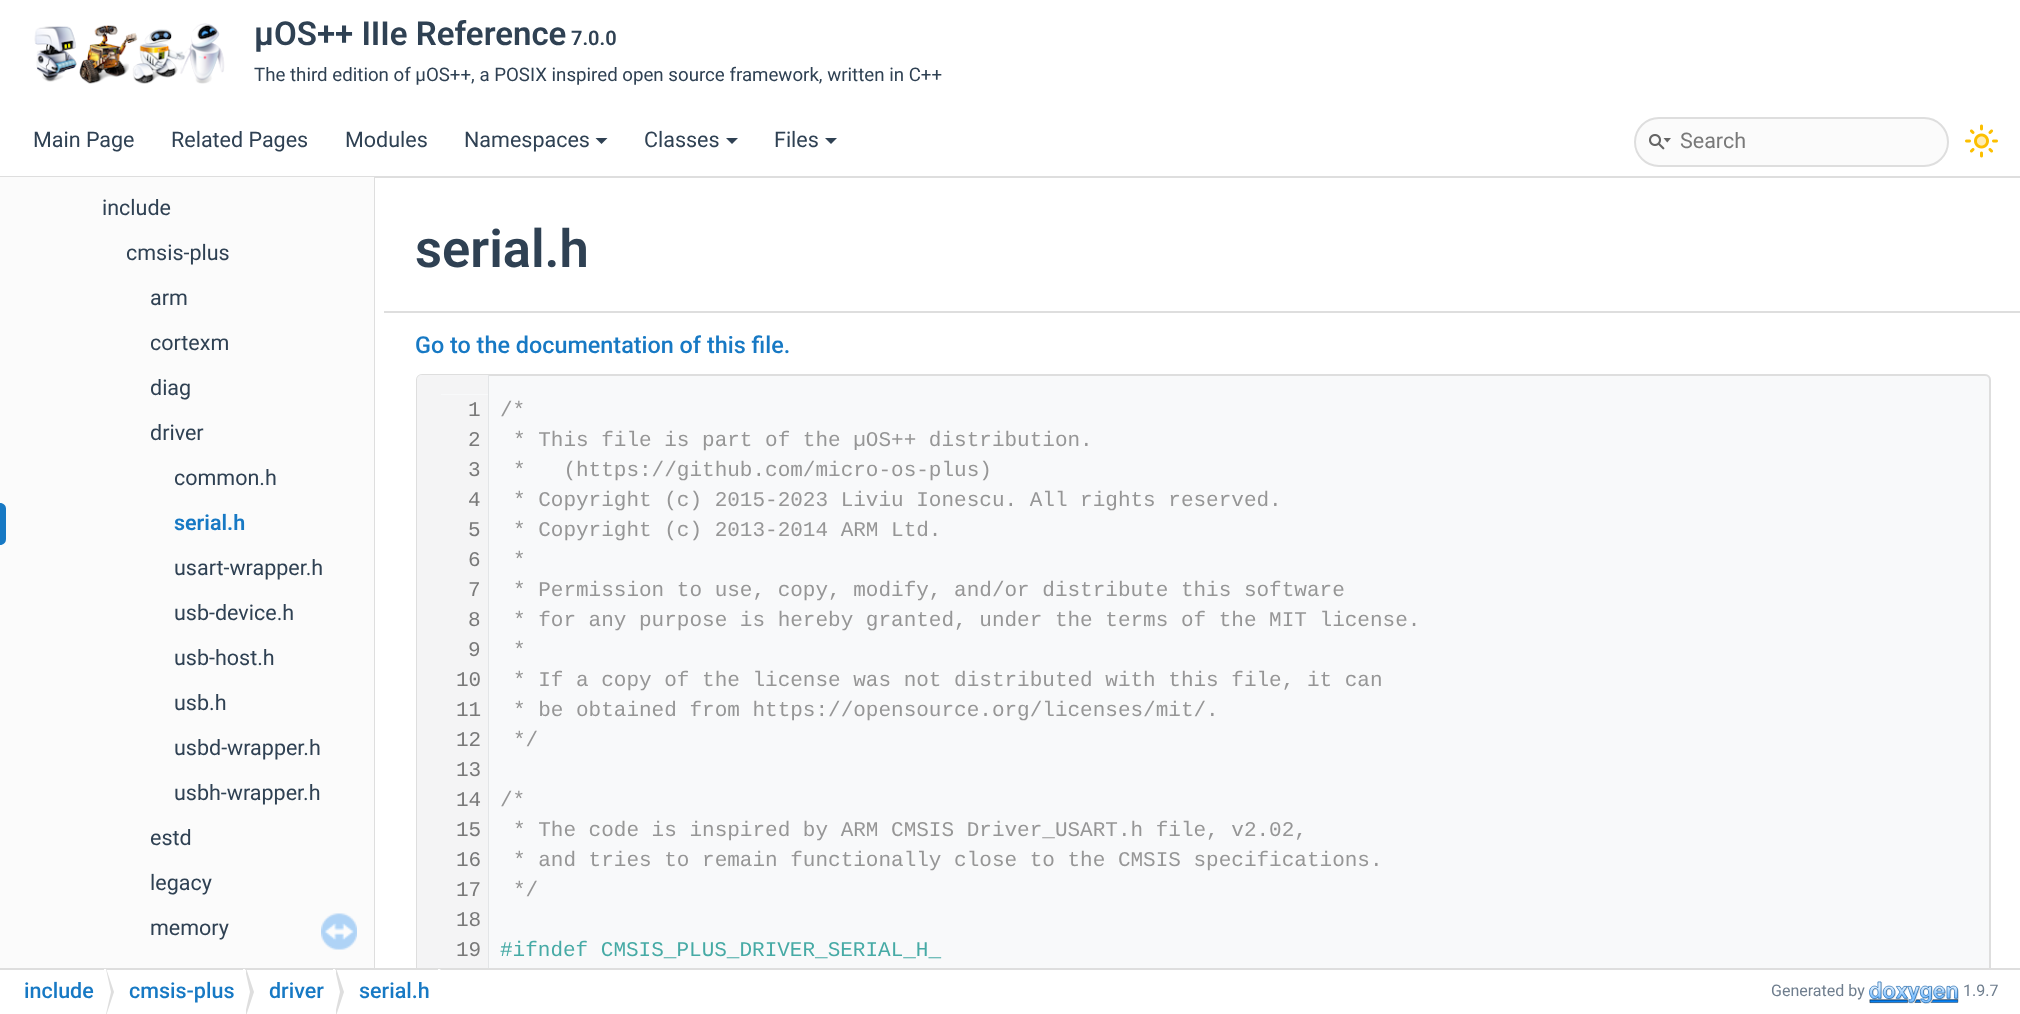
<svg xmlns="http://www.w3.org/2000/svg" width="2020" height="1014">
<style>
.a{font:600 33px Roboto;fill:#2f4153}
.b{font:600 20px Roboto;fill:#2f4153}
.c{font:18.7px Roboto;fill:#2f4153}
.d{font:21.5px Roboto;fill:#2f4153}
.e{font:21.5px Roboto;fill:#797979}
.f{font:600 21.5px Roboto;fill:#1779c4}
.g{font:600 52.5px Roboto;fill:#2f4153}
.h{font:500 23.4px Roboto;fill:#1779c4}
.i{font:21px Liberation Mono;fill:#797979}
.j{font:21px Liberation Mono;fill:#969696}
.k{font:21px Liberation Mono;fill:#46aaa5}
.l{font:500 21.5px Roboto;fill:#1779c4}
.m{font:16px Roboto;fill:#6f7e8e}
</style>
<defs>
<clipPath id="clip1"><path d="M384 177h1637v791H384z"/></clipPath>
<clipPath id="clip2"><path d="M0 969h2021v45H0z"/></clipPath>
</defs>
<rect width="100%" height="100%" fill="#fff"/>
<path fill="#dedede" d="M0 176h2020v2H0z"/>
<image href="1.png" x="34" y="23" width="191" height="61"/>
<path fill="#2f4153" d="M595.5 138h12l-6 6z"/>
<path fill="#2f4153" d="M726 138h12l-6 6z"/>
<path fill="#2f4153" d="M825 138h12l-6 6z"/>
<rect fill="#fbfbfb" stroke="#dedede" stroke-width="2" x="1635" y="118" width="313" height="48" rx="24"/>
<image href="2.png" x="1649" y="134" width="22" height="16"/>
<image href="3.png" x="1965" y="124" width="33" height="34"/>
<path fill="#fbfbfb" d="M0 177h374v791H0z"/>
<path fill="#1779c4" d="M0 503c3.5 0 6 2.5 6 6v30c0 3.5-2.5 6-6 6z"/>
<image href="4.png" x="321" y="913" width="36" height="37"/>
<path fill="#dedede" d="M374 177h1v791H374z"/>
<path fill="#dedede" d="M384 311h1636v2H384z"/>
<path fill="#f8f9fa" d="M422 374h1563c3.5 0 6 2.5 6 6v588h-1575v-588c0-3.5 2.5-6 6-6z"/>
<g clip-path="url(#clip1)">
<rect fill="none" stroke="#dedede" stroke-width="2" x="417" y="375" width="1573" height="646" rx="5"/>
<path fill="#e3e5e7" fill-rule="evenodd" d="M422 375c-3 0-5 2-5 5v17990c0 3 2 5 5 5h67v-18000zm19 19v30h47v-30z"/>
<path fill="#f4f4f5" fill-rule="evenodd" d="M422 375c-3 0-5 2-5 5v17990c0 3 2 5 5 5h66v-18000zm19 19v30h47v-30z"/>
</g>
<path fill="#f4f4f5" d="M441 395h47v29H441z"/>
<path fill="#dedede" d="M0 968h2020v2H0z"/>
<path fill="#dedede" d="M106 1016v-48l8 24z"/>
<g clip-path="url(#clip2)">
<path fill="#fff" d="M104 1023v-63l7 32z"/>
</g>
<path fill="#dedede" d="M246 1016v-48l8 24z"/>
<g clip-path="url(#clip2)">
<path fill="#fff" d="M243 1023v-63l7 32z"/>
</g>
<path fill="#dedede" d="M336 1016v-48l8 24z"/>
<g clip-path="url(#clip2)">
<path fill="#fff" d="M333 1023v-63l7 32z"/>
<path fill="#fff" d="M438 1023v-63l8 32z"/>
</g>
<image href="5.png" x="1869" y="981" width="90" height="23"/>
<text class="a" x="254" y="45">µOS++ IIIe Reference</text>
<text class="b" x="571" y="45">7.0.0</text>
<text class="c" x="254" y="81">The third edition of µOS++, a POSIX inspired open source framework, written in C++</text>
<text class="d" x="33" y="147">Main Page</text>
<text class="d" x="171" y="147">Related Pages</text>
<text class="d" x="345" y="147">Modules</text>
<text class="d" x="464" y="147">Namespaces</text>
<text class="d" x="644" y="147">Classes</text>
<text class="d" x="774" y="147">Files</text>
<text class="e" x="1680" y="148">Search</text>
<text class="d" x="102" y="215">include</text>
<text class="d" x="126" y="260">cmsis-plus</text>
<text class="d" x="150" y="305">arm</text>
<text class="d" x="150" y="350">cortexm</text>
<text class="d" x="150" y="395">diag</text>
<text class="d" x="150" y="440">driver</text>
<text class="d" x="174" y="485">common.h</text>
<text class="f" x="174" y="530">serial.h</text>
<text class="d" x="174" y="575">usart-wrapper.h</text>
<text class="d" x="174" y="620">usb-device.h</text>
<text class="d" x="174" y="665">usb-host.h</text>
<text class="d" x="174" y="710">usb.h</text>
<text class="d" x="174" y="755">usbd-wrapper.h</text>
<text class="d" x="174" y="800">usbh-wrapper.h</text>
<text class="d" x="150" y="845">estd</text>
<text class="d" x="150" y="890">legacy</text>
<text class="d" x="150" y="935">memory</text>
<text class="g" x="415" y="267">serial.h</text>
<text class="h" x="415" y="353">Go to the documentation of this file.</text>
<text class="i" x="468" y="416">1</text>
<text class="j" x="500" y="416">/*</text>
<text class="i" x="468" y="446">2</text>
<text class="j" x="513" y="446">* This file is part of the µOS++ distribution.</text>
<text class="i" x="468" y="476">3</text>
<text class="j" xml:space="preserve" x="513" y="476">*   (https://github.com/micro-os-plus)</text>
<text class="i" x="468" y="506">4</text>
<text class="j" x="513" y="506">* Copyright (c) 2015-2023 Liviu Ionescu. All rights reserved.</text>
<text class="i" x="468" y="536">5</text>
<text class="j" x="513" y="536">* Copyright (c) 2013-2014 ARM Ltd.</text>
<text class="i" x="468" y="566">6</text>
<text class="j" x="513" y="566">*</text>
<text class="i" x="468" y="596">7</text>
<text class="j" x="513" y="596">* Permission to use, copy, modify, and/or distribute this software</text>
<text class="i" x="468" y="626">8</text>
<text class="j" x="513" y="626">* for any purpose is hereby granted, under the terms of the MIT license.</text>
<text class="i" x="468" y="656">9</text>
<text class="j" x="513" y="656">*</text>
<text class="i" x="456" y="686">10</text>
<text class="j" x="513" y="686">* If a copy of the license was not distributed with this file, it can</text>
<text class="i" x="456" y="716">11</text>
<text class="j" x="513" y="716">* be obtained from https://opensource.org/licenses/mit/.</text>
<text class="i" x="456" y="746">12</text>
<text class="j" x="513" y="746">*/</text>
<text class="i" x="456" y="776">13</text>
<text class="i" x="456" y="806">14</text>
<text class="j" x="500" y="806">/*</text>
<text class="i" x="456" y="836">15</text>
<text class="j" x="513" y="836">* The code is inspired by ARM CMSIS Driver_USART.h file, v2.02,</text>
<text class="i" x="456" y="866">16</text>
<text class="j" x="513" y="866">* and tries to remain functionally close to the CMSIS specifications.</text>
<text class="i" x="456" y="896">17</text>
<text class="j" x="513" y="896">*/</text>
<text class="i" x="456" y="926">18</text>
<text class="i" x="456" y="956">19</text>
<text class="k" x="500" y="956">#ifndef CMSIS_PLUS_DRIVER_SERIAL_H_</text>
<text class="l" x="24" y="998">include</text>
<text class="l" x="129" y="998">cmsis-plus</text>
<text class="l" x="269" y="998">driver</text>
<text class="l" x="359" y="998">serial.h</text>
<text class="m" x="1771" y="996">Generated by</text>
<text class="m" x="1963" y="996">1.9.7</text>
</svg>
